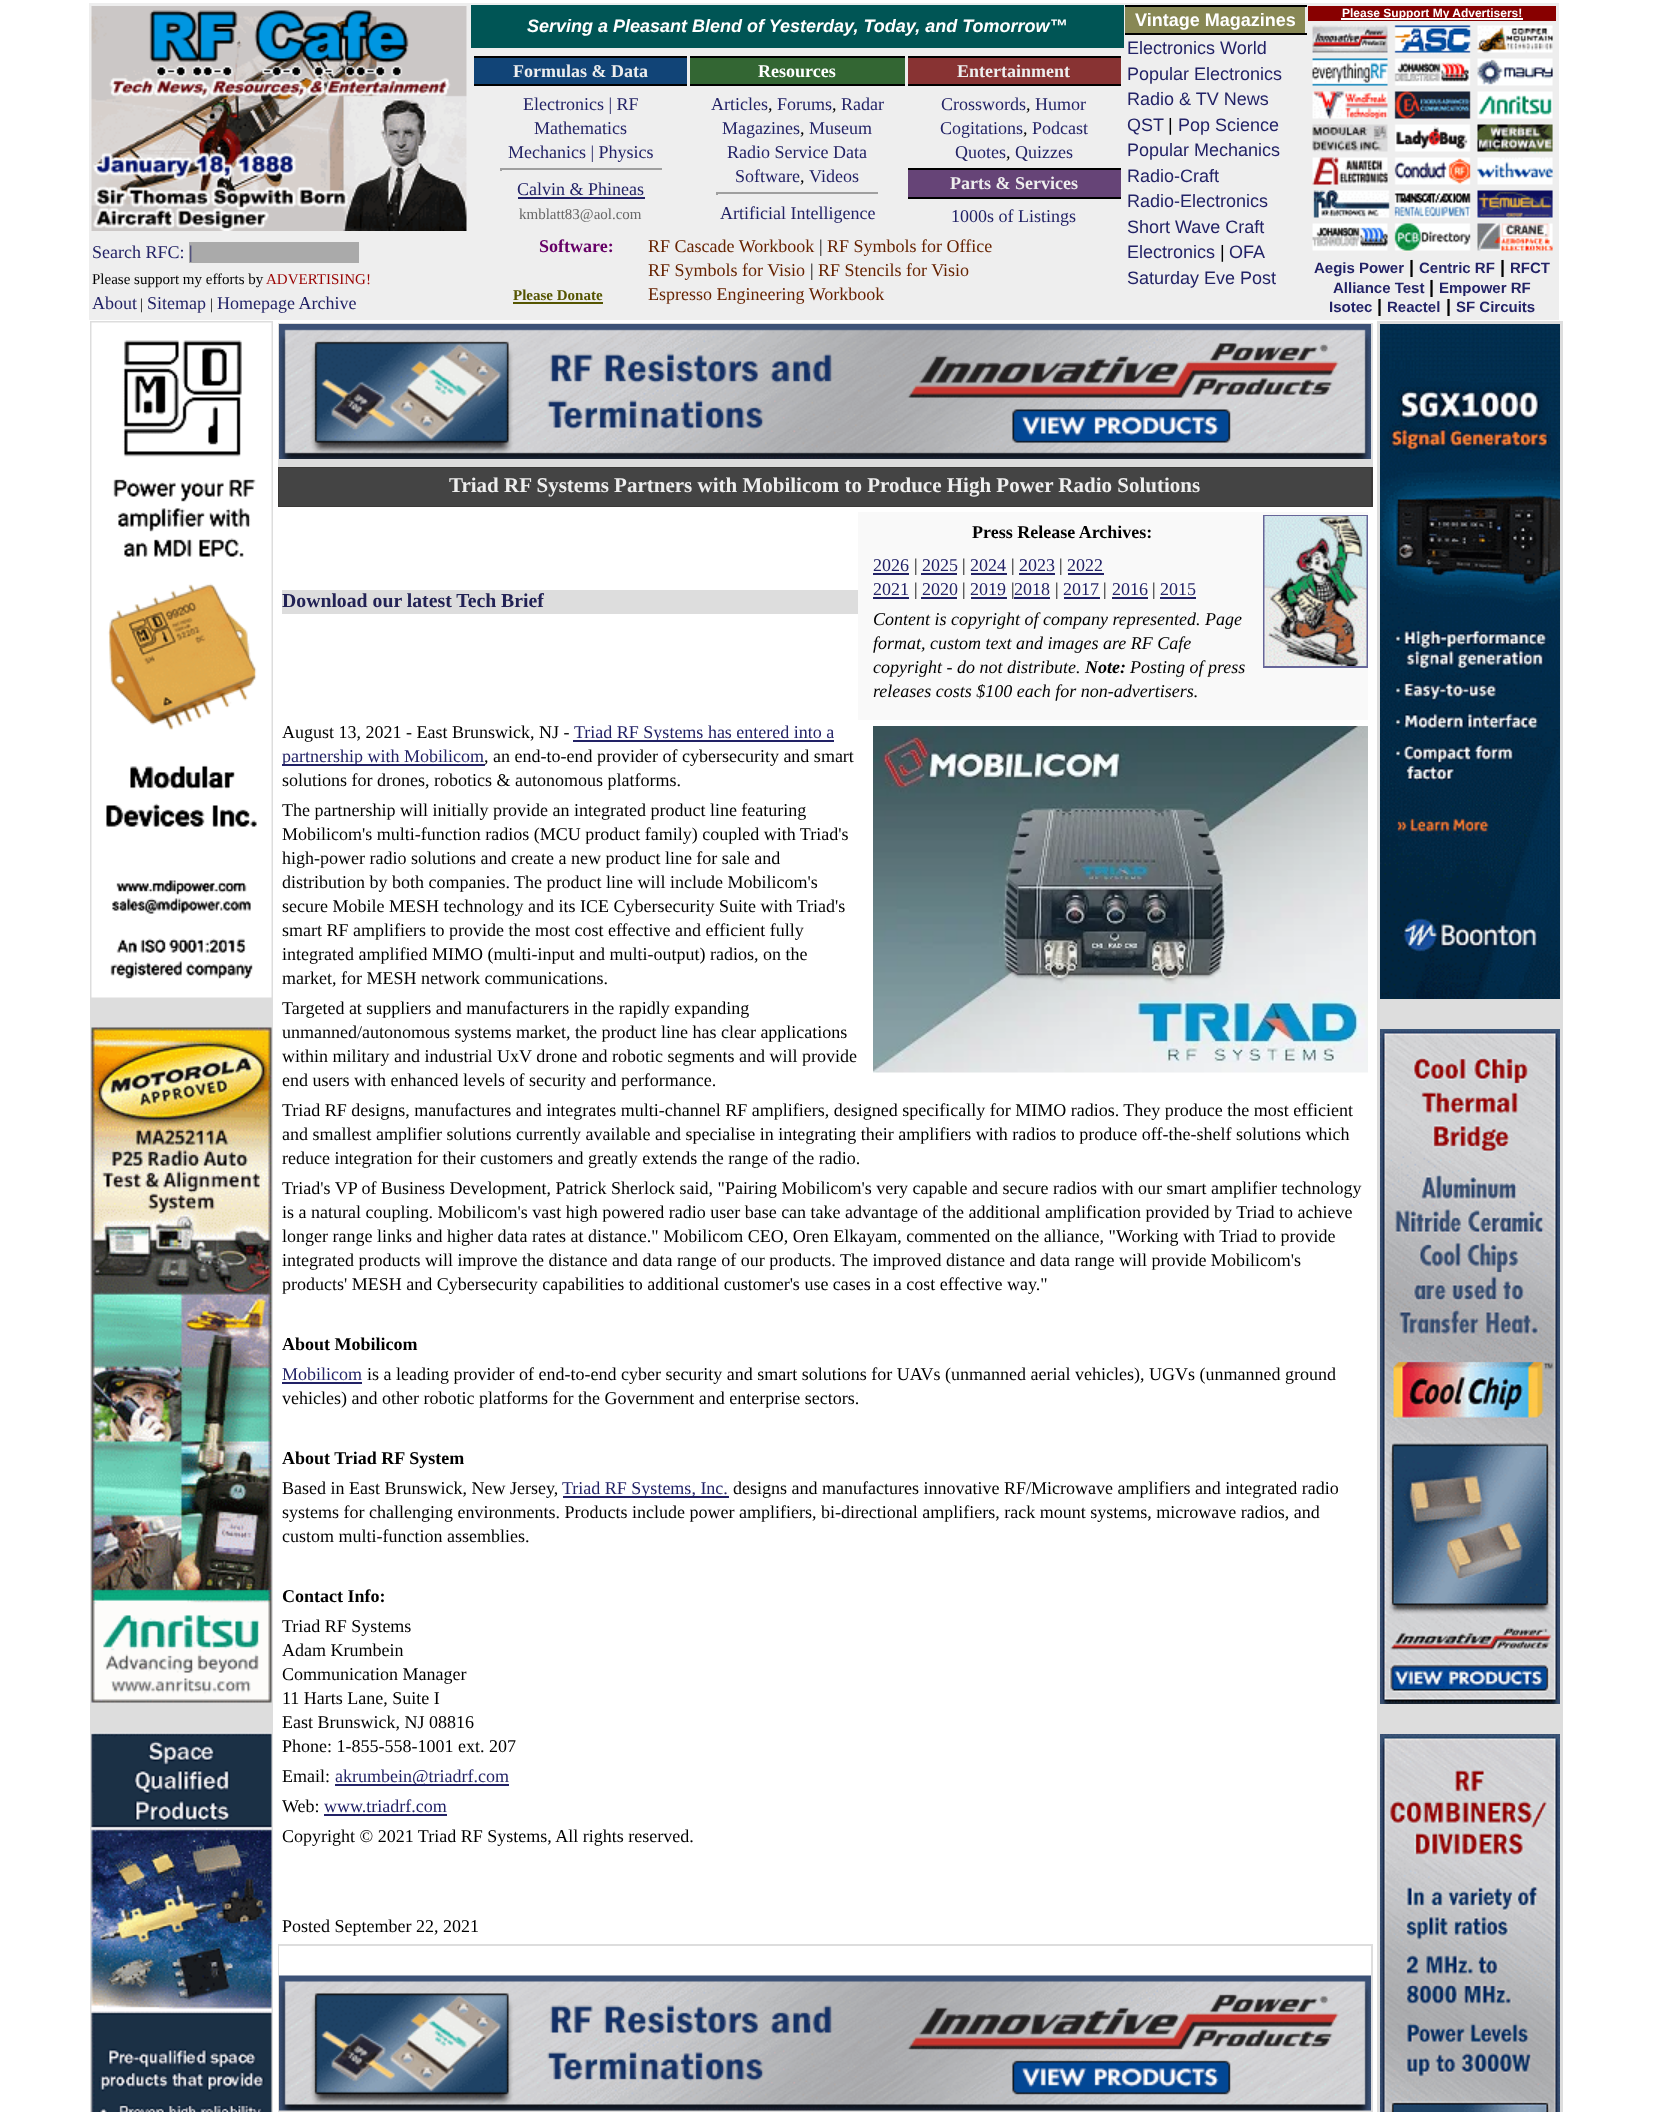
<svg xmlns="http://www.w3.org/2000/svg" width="1653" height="2112">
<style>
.a{font:18px Liberation Serif;fill:#226}
.b{font:15px Liberation Serif;fill:#000}
.c{font:15px Liberation Serif;fill:#900}
.d{font:italic bold 18px Liberation Sans;fill:#fff}
.e{font:bold 18px Liberation Sans;fill:#fff}
.f{font:18px Liberation Sans;fill:#226}
.g{font:18px Liberation Sans;fill:#000}
.h{font:bold 12px Liberation Sans;fill:#fff}
.i{font:bold 15px Liberation Sans;fill:#226}
.j{font:bold 18px Liberation Sans;fill:#000}
.k{font:bold 18px Liberation Serif;fill:#eee}
.l{font:15px Liberation Serif;fill:#666}
.m{font:bold 18px Liberation Serif;fill:#fff}
.n{font:18px Liberation Serif;fill:#000}
.o{font:bold 18px Liberation Serif;fill:#606}
.p{font:bold 15px Liberation Serif;fill:#550}
.q{font:18px Liberation Serif;fill:#620}
.r{font:bold 21px Liberation Serif;fill:#eee}
.s{font:bold 19.75px Liberation Serif;fill:#225}
.t{font:bold 18px Liberation Serif;fill:#000}
.u{font:italic 18px Liberation Serif;fill:#000}
.v{font:italic bold 18px Liberation Serif;fill:#000}
</style>
<rect width="100%" height="100%" fill="#fff"/>
<path fill="#eee" d="M89 3h1470v317H89z"/>
<image href="1.png" x="91" y="6" width="376" height="225"/>
<path fill="#aaa" d="M189 242h170v21H189z"/>
<path fill="#055" d="M471 5h653v43H471z"/>
<path fill="#885" d="M1125 7h180v26H1125z"/>
<path fill="#000" d="M1125 5h182v2H1125z"/>
<path fill="#000" d="M1125 33h182v2H1125z"/>
<path fill="#800" d="M1308 6h248v15H1308z"/>
<path fill="#fff" d="M1341 18h182v2H1341z"/>
<image href="2.png" x="1311" y="25" width="243" height="227"/>
<path fill="#147" d="M474 58h213v26H474z"/>
<path fill="#000" d="M474 56h213v2H474z"/>
<path fill="#000" d="M474 84h213v2H474z"/>
<path fill="#9f9f9f" d="M500 168h163v2H500z"/>
<path fill="#eee" d="M662 168h1v3H662z"/>
<path fill="#9f9f9f" d="M500 168h2v3H500z"/>
<path fill="#226" d="M518 197h127v2H518z"/>
<path fill="#363" d="M690 58h215v26H690z"/>
<path fill="#000" d="M690 56h215v2H690z"/>
<path fill="#000" d="M690 84h215v2H690z"/>
<path fill="#9f9f9f" d="M716 192h163v2H716z"/>
<path fill="#eee" d="M878 192h1v3H878z"/>
<path fill="#9f9f9f" d="M716 192h2v3H716z"/>
<path fill="#833" d="M908 58h213v26H908z"/>
<path fill="#000" d="M908 56h213v2H908z"/>
<path fill="#000" d="M908 84h213v2H908z"/>
<path fill="#647" d="M908 170h213v27H908z"/>
<path fill="#000" d="M908 168h213v2H908z"/>
<path fill="#000" d="M908 197h213v2H908z"/>
<path fill="#550" d="M513 302h90v2H513z"/>
<path fill="#ddd" d="M90 321h183v1791H90z"/>
<image href="3.png" x="91" y="322" width="181" height="676"/>
<image href="4.png" x="91" y="1027" width="181" height="676"/>
<image href="5.png" x="91" y="1732" width="181" height="380"/>
<path fill="#ddd" d="M278 323h1095v144H278z"/>
<image href="6.png" x="279" y="324" width="1092" height="135"/>
<path fill="#3b3938" d="M278 467h1095v40H278z"/>
<path fill="#444" d="M279 468h1092v38H279z"/>
<path fill="#ddd" d="M282 590h576v24H282z"/>
<path fill="#f9f9f9" d="M858 512h510v208H858z"/>
<path fill="none" stroke="#669" stroke-width="2" d="M1264 516h103v151H1264z"/>
<image href="7.png" x="1264" y="516" width="103" height="150"/>
<path fill="#226" d="M873 573h36v2H873z"/>
<path fill="#226" d="M921 573h36v2H921z"/>
<path fill="#226" d="M971 573h36v2H971z"/>
<path fill="#226" d="M1019 573h36v2H1019z"/>
<path fill="#226" d="M1068 573h36v2H1068z"/>
<path fill="#226" d="M873 597h36v2H873z"/>
<path fill="#226" d="M921 597h36v2H921z"/>
<path fill="#226" d="M971 597h36v2H971z"/>
<path fill="#226" d="M1014 597h36v2H1014z"/>
<path fill="#226" d="M1064 597h36v2H1064z"/>
<path fill="#226" d="M1112 597h36v2H1112z"/>
<path fill="#226" d="M1160 597h36v2H1160z"/>
<path fill="#226" d="M573 740h261v2H573z"/>
<image href="8.png" x="873" y="726" width="495" height="347"/>
<path fill="#226" d="M282 764h203v2H282z"/>
<path fill="#226" d="M282 1382h80v2H282z"/>
<path fill="#226" d="M563 1496h166v2H563z"/>
<path fill="#226" d="M335 1784h174v2H335z"/>
<path fill="#226" d="M324 1814h123v2H324z"/>
<path fill="#ddd" d="M278 1944h1095v168H278z"/>
<path fill="#fff" d="M279 1946h1092v30H279z"/>
<image href="9.png" x="279" y="1975" width="1092" height="136"/>
<path fill="#ddd" d="M1377 321h186v1791H1377z"/>
<image href="10.png" x="1380" y="324" width="180" height="675"/>
<image href="11.png" x="1380" y="1029" width="180" height="675"/>
<image href="12.png" x="1380" y="1734" width="180" height="378"/>
<text class="a" x="92" y="258">Search RFC:</text>
<text class="a" x="189" y="258">|</text>
<text class="b" x="92" y="284">Please support my efforts by</text>
<text class="c" x="266" y="284">ADVERTISING!</text>
<text class="a" x="92" y="309">About</text>
<text class="b" x="140" y="309">|</text>
<text class="a" x="147" y="309">Sitemap</text>
<text class="b" x="210" y="309">|</text>
<text class="a" x="217" y="309">Homepage Archive</text>
<text class="d" x="527" y="32">Serving a Pleasant Blend of Yesterday, Today, and Tomorrow™</text>
<text class="e" x="1135" y="26">Vintage Magazines</text>
<text class="f" x="1127" y="54">Electronics World</text>
<text class="f" x="1127" y="80">Popular Electronics</text>
<text class="f" x="1127" y="105">Radio &amp; TV News</text>
<text class="f" x="1127" y="131">QST</text>
<text class="g" x="1168" y="131">|</text>
<text class="f" x="1178" y="131">Pop Science</text>
<text class="f" x="1127" y="156">Popular Mechanics</text>
<text class="f" x="1127" y="182">Radio-Craft</text>
<text class="f" x="1127" y="207">Radio-Electronics</text>
<text class="f" x="1127" y="233">Short Wave Craft</text>
<text class="f" x="1127" y="258">Electronics</text>
<text class="g" x="1220" y="258">|</text>
<text class="f" x="1229" y="258">OFA</text>
<text class="f" x="1127" y="284">Saturday Eve Post</text>
<text class="h" x="1342" y="17">Please Support My Advertisers!</text>
<text class="i" x="1314" y="273">Aegis Power</text>
<text class="j" x="1409" y="273">|</text>
<text class="i" x="1419" y="273">Centric RF</text>
<text class="j" x="1500" y="273">|</text>
<text class="i" x="1510" y="273">RFCT</text>
<text class="i" x="1333" y="293">Alliance Test</text>
<text class="j" x="1429" y="293">|</text>
<text class="i" x="1439" y="293">Empower RF</text>
<text class="i" x="1329" y="312">Isotec</text>
<text class="j" x="1377" y="312">|</text>
<text class="i" x="1387" y="312">Reactel</text>
<text class="j" x="1446" y="312">|</text>
<text class="i" x="1456" y="312">SF Circuits</text>
<text class="k" x="513" y="77">Formulas &amp; Data</text>
<text class="a" x="523" y="110">Electronics | RF</text>
<text class="a" x="534" y="134">Mathematics</text>
<text class="a" x="508" y="158">Mechanics | Physics</text>
<text class="a" x="517" y="195">Calvin &amp; Phineas</text>
<text class="l" x="519" y="219">kmblatt83@aol.com</text>
<text class="m" x="758" y="77">Resources</text>
<text class="a" x="711" y="110">Articles</text>
<text class="n" x="768" y="110">,</text>
<text class="a" x="777" y="110">Forums</text>
<text class="n" x="832" y="110">,</text>
<text class="a" x="841" y="110">Radar</text>
<text class="a" x="722" y="134">Magazines</text>
<text class="n" x="800" y="134">,</text>
<text class="a" x="809" y="134">Museum</text>
<text class="a" x="727" y="158">Radio Service Data</text>
<text class="a" x="735" y="182">Software</text>
<text class="n" x="800" y="182">,</text>
<text class="a" x="809" y="182">Videos</text>
<text class="a" x="720" y="219">Artificial Intelligence</text>
<text class="k" x="957" y="77">Entertainment</text>
<text class="a" x="941" y="110">Crosswords</text>
<text class="n" x="1026" y="110">,</text>
<text class="a" x="1035" y="110">Humor</text>
<text class="a" x="940" y="134">Cogitations</text>
<text class="n" x="1023" y="134">,</text>
<text class="a" x="1032" y="134">Podcast</text>
<text class="a" x="955" y="158">Quotes</text>
<text class="n" x="1006" y="158">,</text>
<text class="a" x="1015" y="158">Quizzes</text>
<text class="k" x="950" y="189">Parts &amp; Services</text>
<text class="a" x="951" y="222">1000s of Listings</text>
<text class="o" x="539" y="252">Software:</text>
<text class="p" x="513" y="300">Please Donate</text>
<text class="q" x="648" y="252">RF Cascade Workbook</text>
<text class="n" x="819" y="252">|</text>
<text class="q" x="827" y="252">RF Symbols for Office</text>
<text class="q" x="648" y="276">RF Symbols for Visio</text>
<text class="n" x="810" y="276">|</text>
<text class="q" x="818" y="276">RF Stencils for Visio</text>
<text class="q" x="648" y="300">Espresso Engineering Workbook</text>
<text class="r" x="449" y="492">Triad RF Systems Partners with Mobilicom to Produce High Power Radio Solutions</text>
<text class="s" x="282" y="607">Download our latest Tech Brief</text>
<text class="t" x="972" y="538">Press Release Archives:</text>
<text class="a" x="873" y="571">2026</text>
<text class="n" x="914" y="571">|</text>
<text class="a" x="922" y="571">2025</text>
<text class="n" x="962" y="571">|</text>
<text class="a" x="970" y="571">2024</text>
<text class="n" x="1011" y="571">|</text>
<text class="a" x="1019" y="571">2023</text>
<text class="n" x="1059" y="571">|</text>
<text class="a" x="1067" y="571">2022</text>
<text class="a" x="873" y="595">2021</text>
<text class="n" x="914" y="595">|</text>
<text class="a" x="922" y="595">2020</text>
<text class="n" x="962" y="595">|</text>
<text class="a" x="970" y="595">2019</text>
<text class="n" x="1011" y="595">|</text>
<text class="a" x="1014" y="595">2018</text>
<text class="n" x="1055" y="595">|</text>
<text class="a" x="1063" y="595">2017</text>
<text class="n" x="1103" y="595">|</text>
<text class="a" x="1112" y="595">2016</text>
<text class="n" x="1152" y="595">|</text>
<text class="a" x="1160" y="595">2015</text>
<text class="u" x="873" y="625">Content is copyright of company represented. Page</text>
<text class="u" x="873" y="649">format, custom text and images are RF Cafe</text>
<text class="u" x="873" y="673">copyright - do not distribute.</text>
<text class="v" x="1085" y="673">Note:</text>
<text class="u" x="1130" y="673">Posting of press</text>
<text class="u" x="873" y="697">releases costs $100 each for non-advertisers.</text>
<text class="n" x="282" y="738">August 13, 2021 - East Brunswick, NJ -</text>
<text class="a" x="574" y="738">Triad RF Systems has entered into a</text>
<text class="a" x="282" y="762">partnership with Mobilicom</text>
<text class="n" x="484" y="762">, an end-to-end provider of cybersecurity and smart</text>
<text class="n" x="282" y="786">solutions for drones, robotics &amp; autonomous platforms.</text>
<text class="n" x="282" y="816">The partnership will initially provide an integrated product line featuring</text>
<text class="n" x="282" y="840">Mobilicom's multi-function radios (MCU product family) coupled with Triad's</text>
<text class="n" x="282" y="864">high-power radio solutions and create a new product line for sale and</text>
<text class="n" x="282" y="888">distribution by both companies.</text>
<text class="n" x="514" y="888">The product line will include Mobilicom's</text>
<text class="n" x="282" y="912">secure Mobile MESH technology and its ICE Cybersecurity Suite with Triad's</text>
<text class="n" x="282" y="936">smart RF amplifiers to provide the most cost effective and efficient fully</text>
<text class="n" x="282" y="960">integrated amplified MIMO (multi-input and multi-output) radios, on the</text>
<text class="n" x="282" y="984">market, for MESH network communications.</text>
<text class="n" x="282" y="1014">Targeted at suppliers and manufacturers in the rapidly expanding</text>
<text class="n" x="282" y="1038">unmanned/autonomous systems market, the product line has clear applications</text>
<text class="n" x="282" y="1062">within military and industrial UxV drone and robotic segments and will provide</text>
<text class="n" x="282" y="1086">end users with enhanced levels of security and performance.</text>
<text class="n" x="282" y="1116">Triad RF designs, manufactures and integrates multi-channel RF amplifiers, designed specifically for MIMO radios. They produce the most efficient</text>
<text class="n" x="282" y="1140">and smallest amplifier solutions currently available and specialise in integrating their amplifiers with radios to produce off-the-shelf solutions which</text>
<text class="n" x="282" y="1164">reduce integration for their customers and greatly extends the range of the radio.</text>
<text class="n" x="282" y="1194">Triad's VP of Business Development, Patrick Sherlock said, "Pairing Mobilicom's very capable and secure radios with our smart amplifier technology</text>
<text class="n" x="282" y="1218">is a natural coupling. Mobilicom's vast high powered radio user base can take advantage of the additional amplification provided by Triad to achieve</text>
<text class="n" x="282" y="1242">longer range links and higher data rates at distance." Mobilicom CEO, Oren Elkayam, commented on the alliance, "Working with Triad to provide</text>
<text class="n" x="282" y="1266">integrated products will improve the distance and data range of our products. The improved distance and data range will provide Mobilicom's</text>
<text class="n" x="282" y="1290">products' MESH and Cybersecurity capabilities to additional customer's use cases in a cost effective way."</text>
<text class="t" x="282" y="1350">About Mobilicom</text>
<text class="a" x="282" y="1380">Mobilicom</text>
<text class="n" x="367" y="1380">is a leading provider of end-to-end cyber security and smart solutions for UAVs (unmanned aerial vehicles), UGVs (unmanned ground</text>
<text class="n" x="282" y="1404">vehicles) and other robotic platforms for the Government and enterprise sectors.</text>
<text class="t" x="282" y="1464">About Triad RF System</text>
<text class="n" x="282" y="1494">Based in East Brunswick, New Jersey,</text>
<text class="a" x="562" y="1494">Triad RF Systems, Inc.</text>
<text class="n" x="733" y="1494">designs and manufactures innovative RF/Microwave amplifiers and integrated radio</text>
<text class="n" x="282" y="1518">systems for challenging environments. Products include power amplifiers, bi-directional amplifiers, rack mount systems, microwave radios, and</text>
<text class="n" x="282" y="1542">custom multi-function assemblies.</text>
<text class="t" x="282" y="1602">Contact Info:</text>
<text class="n" x="282" y="1632">Triad RF Systems</text>
<text class="n" x="282" y="1656">Adam Krumbein</text>
<text class="n" x="282" y="1680">Communication Manager</text>
<text class="n" x="282" y="1704">11 Harts Lane, Suite I</text>
<text class="n" x="282" y="1728">East Brunswick, NJ 08816</text>
<text class="n" x="282" y="1752">Phone: 1-855-558-1001 ext. 207</text>
<text class="n" x="282" y="1782">Email:</text>
<text class="a" x="335" y="1782">akrumbein@triadrf.com</text>
<text class="n" x="282" y="1812">Web:</text>
<text class="a" x="324" y="1812">www.triadrf.com</text>
<text class="n" x="282" y="1842">Copyright © 2021 Triad RF Systems, All rights reserved.</text>
<text class="n" x="282" y="1932">Posted September 22, 2021</text>
</svg>
